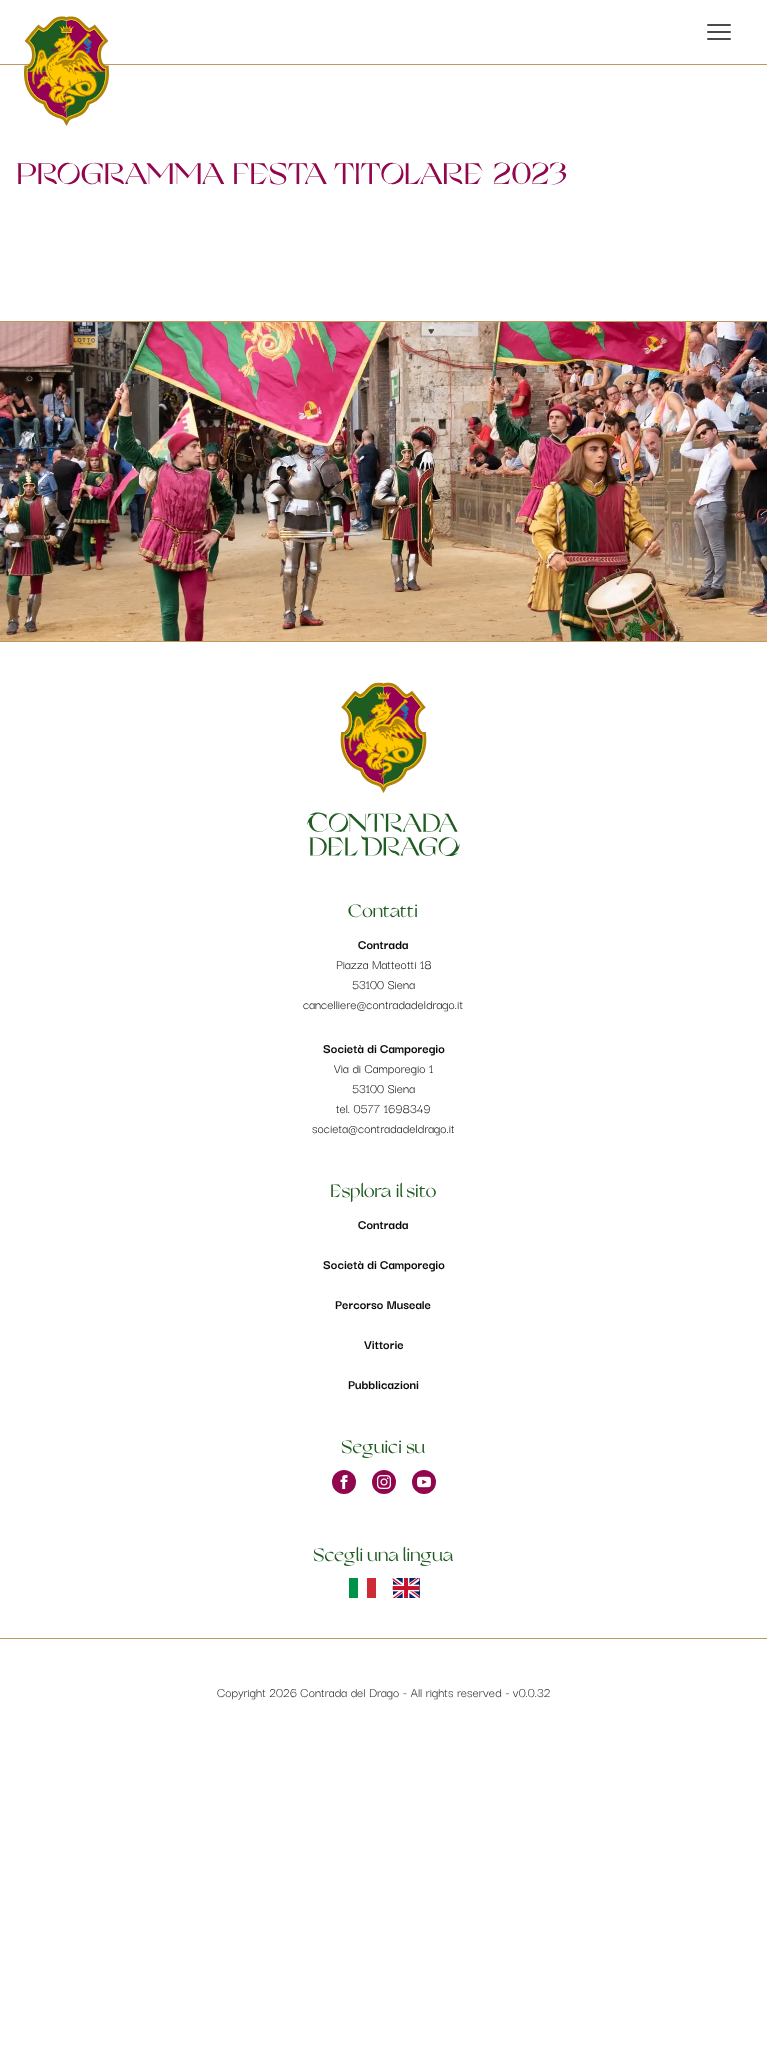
<svg xmlns="http://www.w3.org/2000/svg" width="767" height="2062">
<style>
.a{font:30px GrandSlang;fill:#91064d}
.b{font:18px GrandSlang;fill:#1f5c21}
.c{font:bold 14px Darker Grotesque;fill:#090909}
.d{font:14px Darker Grotesque;fill:#090909}
.e{font:14px Darker Grotesque;fill:#1d1d1d}
</style>
<rect width="100%" height="100%" fill="#fff"/>
<path fill="#bf9760" d="M0 64h767v1H0z"/>
<image href="1.png" x="24" y="16" width="85" height="110"/>
<path fill="none" stroke="#4a4a4a" stroke-width="2" stroke-linecap="round" stroke-linejoin="round" d="M708 25h22m-22 7h22m-22 7h22"/>
<path fill="#bf9760" d="M0 321h767v1H0z"/>
<image href="2.png" x="0" y="322" width="767" height="319"/>
<path fill="#bf9760" d="M0 641h767v1H0z"/>
<path fill="#bf9760" d="M0 1638h767v1H0z"/>
<image href="3.png" x="307" y="682" width="153" height="174"/>
<circle fill="#91064d" cx="344" cy="1482" r="12"/>
<image href="4.png" x="340" y="1475" width="8" height="14"/>
<circle fill="#91064d" cx="384" cy="1482" r="12"/>
<image href="5.png" x="377" y="1475" width="14" height="14"/>
<circle fill="#91064d" cx="424" cy="1482" r="12"/>
<image href="6.png" x="417" y="1476" width="14" height="12"/>
<path fill="#009246" d="M349 1578h9v20H349z"/>
<path fill="#ce2b37" d="M367 1578h9v20H367z"/>
<image href="7.png" x="392" y="1578" width="28" height="20"/>
<text class="a" x="16" y="184">PROGRAMMA FESTA TITOLARE 2023</text>
<text class="b" x="348" y="917">Contatti</text>
<text class="c" x="358" y="949">Contrada</text>
<text class="d" x="336" y="969">Piazza Matteotti 18</text>
<text class="d" x="352" y="989">53100 Siena</text>
<text class="d" x="303" y="1009">cancelliere@contradadeldrago.it</text>
<text class="c" x="323" y="1053">Società di Camporegio</text>
<text class="d" x="334" y="1073">Via di Camporegio 1</text>
<text class="d" x="352" y="1093">53100 Siena</text>
<text class="d" x="336" y="1113">tel. 0577 1698349</text>
<text class="d" x="312" y="1133">societa@contradadeldrago.it</text>
<text class="b" x="330" y="1197">Esplora il sito</text>
<text class="c" x="358" y="1229">Contrada</text>
<text class="c" x="323" y="1269">Società di Camporegio</text>
<text class="c" x="335" y="1309">Percorso Museale</text>
<text class="c" x="364" y="1349">Vittorie</text>
<text class="c" x="348" y="1389">Pubblicazioni</text>
<text class="b" x="341" y="1453">Seguici su</text>
<text class="b" x="313" y="1561">Scegli una lingua</text>
<text class="e" x="217" y="1697">Copyright 2026 Contrada del Drago - All rights reserved - v0.0.32</text>
</svg>
